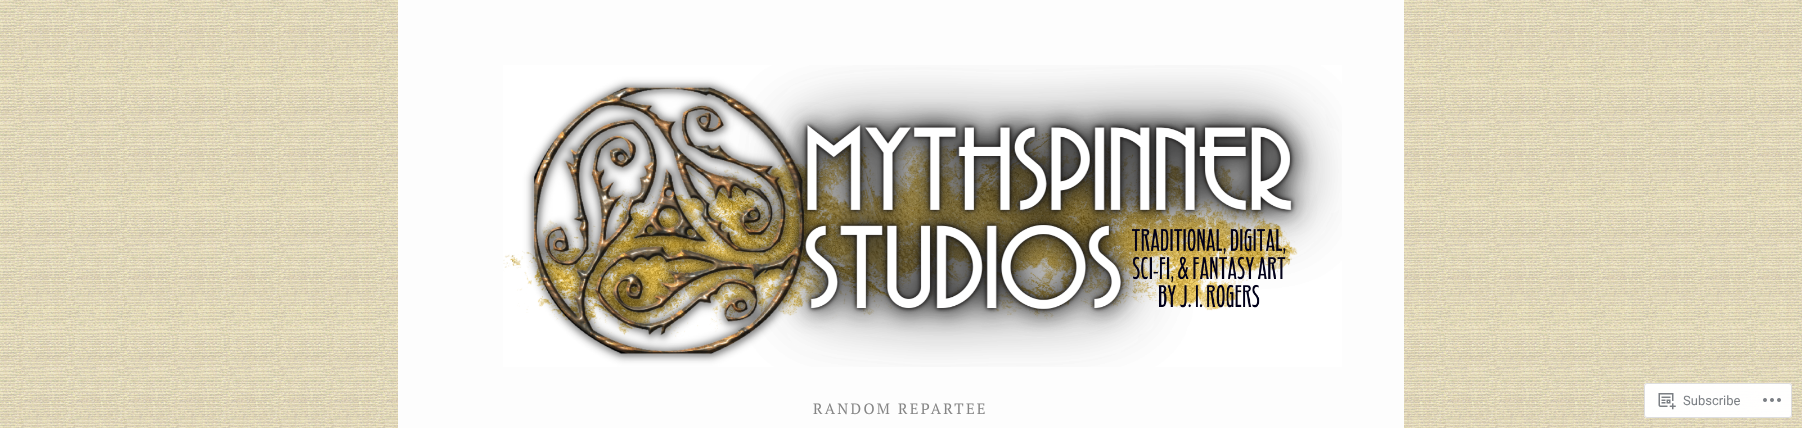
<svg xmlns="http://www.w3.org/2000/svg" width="1802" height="428">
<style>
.a{font:13px Roboto;fill:#7b7f84}
.b{font:15px PT Serif;letter-spacing:2.25px;fill:#858585}
</style>
<rect width="100%" height="100%" fill="#fff"/>
<image href="1.png" x="0" y="0" width="1802" height="428"/>
<rect fill="#fffffffa" x="1644" y="383" width="148" height="35" rx="3"/>
<rect fill="none" stroke="#dcdcdefa" x="1644.5" y="383.5" width="147" height="34" rx="2.5"/>
<image href="2.png" x="1658" y="393" width="18" height="17"/>
<image href="3.png" x="1763" y="398" width="18" height="4"/>
<path fill="#fdfdfd" d="M398 0h1006v428H398z"/>
<image href="4.png" x="503" y="65" width="839" height="302"/>
<text class="a" x="1683" y="405">Subscribe</text>
<text class="b" x="813" y="414">RANDOM REPARTEE</text>
</svg>
